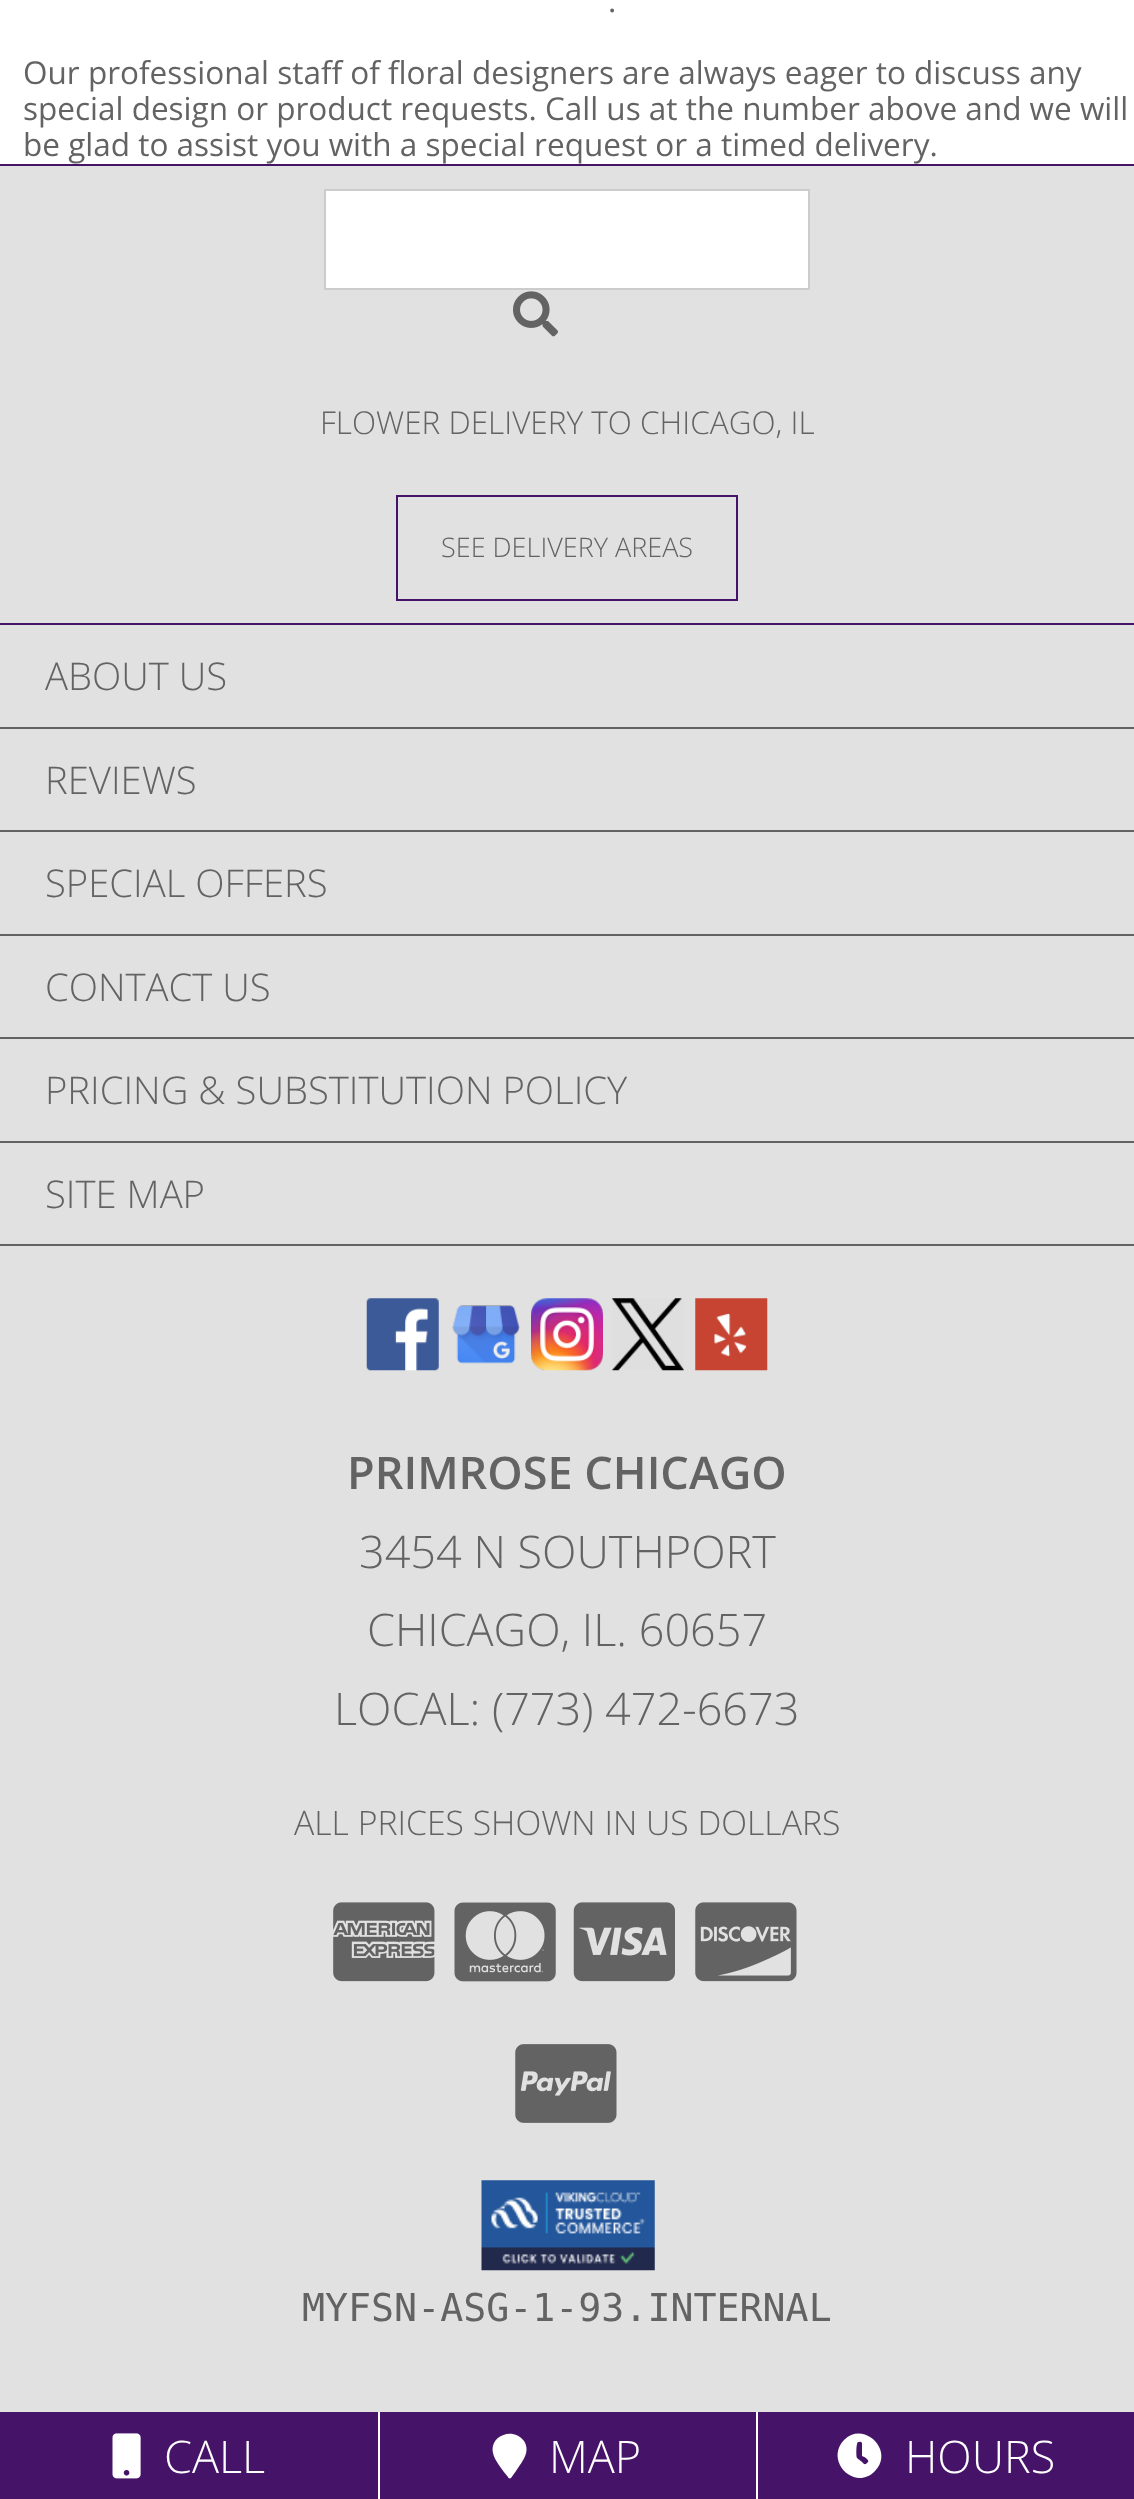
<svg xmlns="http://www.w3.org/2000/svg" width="1134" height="2499">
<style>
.a{font:31.5px Open Sans;fill:#636363}
.b{font:300 31.5px Open Sans;fill:#636363}
.c{font:300 27px Open Sans;fill:#636363}
.d{font:300 38.25px Open Sans;fill:#636363}
.e{font:600 45px Open Sans;fill:#636363}
.f{font:300 45px Open Sans;fill:#636363}
.g{font:300 33.75px Open Sans;fill:#636363}
.h{font:38.25px DejaVu Sans Mono;fill:#636363}
.i{font:300 45px Open Sans;fill:#fff}
</style>
<rect width="100%" height="100%" fill="#fff"/>
<path fill="#e1e1e1" d="M0 166h1134v2246H0z"/>
<path fill="#451368" d="M0 164h1134v2H0z"/>
<path fill="#451368" d="M0 623h1134v2H0z"/>
<path fill="#fff" stroke="#ccc" stroke-width="2" d="M325 190h484v99H325z"/>
<image href="1.png" x="513" y="291" width="45" height="46"/>
<path fill="none" stroke="#451368" stroke-width="2" d="M397 496h340v104H397z"/>
<path fill="#636363" d="M0 727h1134v2H0z"/>
<path fill="#636363" d="M0 830h1134v2H0z"/>
<path fill="#636363" d="M0 934h1134v2H0z"/>
<path fill="#636363" d="M0 1037h1134v2H0z"/>
<path fill="#636363" d="M0 1141h1134v2H0z"/>
<path fill="#636363" d="M0 1244h1134v2H0z"/>
<image href="2.png" x="366" y="1298" width="73" height="73"/>
<image href="3.png" x="452" y="1305" width="68" height="59"/>
<image href="4.png" x="531" y="1298" width="72" height="73"/>
<image href="5.png" x="612" y="1298" width="72" height="73"/>
<image href="6.png" x="695" y="1298" width="73" height="73"/>
<image href="7.png" x="333" y="1902" width="102" height="80"/>
<image href="8.png" x="454" y="1902" width="102" height="80"/>
<image href="9.png" x="573" y="1902" width="102" height="80"/>
<image href="10.png" x="695" y="1902" width="102" height="80"/>
<image href="11.png" x="515" y="2044" width="102" height="79"/>
<image href="12.png" x="481" y="2180" width="174" height="91"/>
<path fill="#451368" d="M0 2412h378v87H0z"/>
<image href="13.png" x="112" y="2433" width="29" height="46"/>
<path fill="#451368" d="M380 2412h376v87H380z"/>
<path fill="#fff" d="M508 2477c-4-5-14-17-15-24c-4-17 20-27 31-12c7 11-2 21-8 30l-5 7c-1 1-3 0-3-1z"/>
<path fill="#451368" d="M758 2412h376v87H758z"/>
<path fill="#fff" d="M844 2440c20-20 51 11 31 31c-20 21-51-10-31-31zm24 22c2-2-5-6-6-6v-13c-1-2-3-1-4-1c-2 1-2 15-1 16l5 4c3 3 3 3 6 0z"/>
<text class="a" x="608" y="12">.</text>
<text class="a" x="23" y="84">Our professional staff of floral designers are always eager to discuss any</text>
<text class="a" x="23" y="120">special design or product requests. Call us at the number above and we will</text>
<text class="a" x="23" y="156">be glad to assist you with a special request or a timed delivery.</text>
<text class="b" x="320" y="434">FLOWER DELIVERY TO CHICAGO, IL</text>
<text class="c" x="441" y="557">SEE DELIVERY AREAS</text>
<text class="d" x="45" y="690">ABOUT US</text>
<text class="d" x="45" y="794">REVIEWS</text>
<text class="d" x="45" y="897">SPECIAL OFFERS</text>
<text class="d" x="45" y="1001">CONTACT US</text>
<text class="d" x="45" y="1104">PRICING &amp; SUBSTITUTION POLICY</text>
<text class="d" x="45" y="1208">SITE MAP</text>
<text class="e" x="347" y="1489">PRIMROSE CHICAGO</text>
<text class="f" x="359" y="1568">3454 N SOUTHPORT</text>
<text class="f" x="367" y="1646">CHICAGO, IL. 60657</text>
<text class="f" x="334" y="1725">LOCAL: (773) 472-6673</text>
<text class="g" x="294" y="1835">ALL PRICES SHOWN IN US DOLLARS</text>
<text class="h" x="302" y="2321">MYFSN-ASG-1-93.INTERNAL</text>
<text class="i" x="164" y="2473">CALL</text>
<text class="i" x="549" y="2473">MAP</text>
<text class="i" x="905" y="2473">HOURS</text>
</svg>
